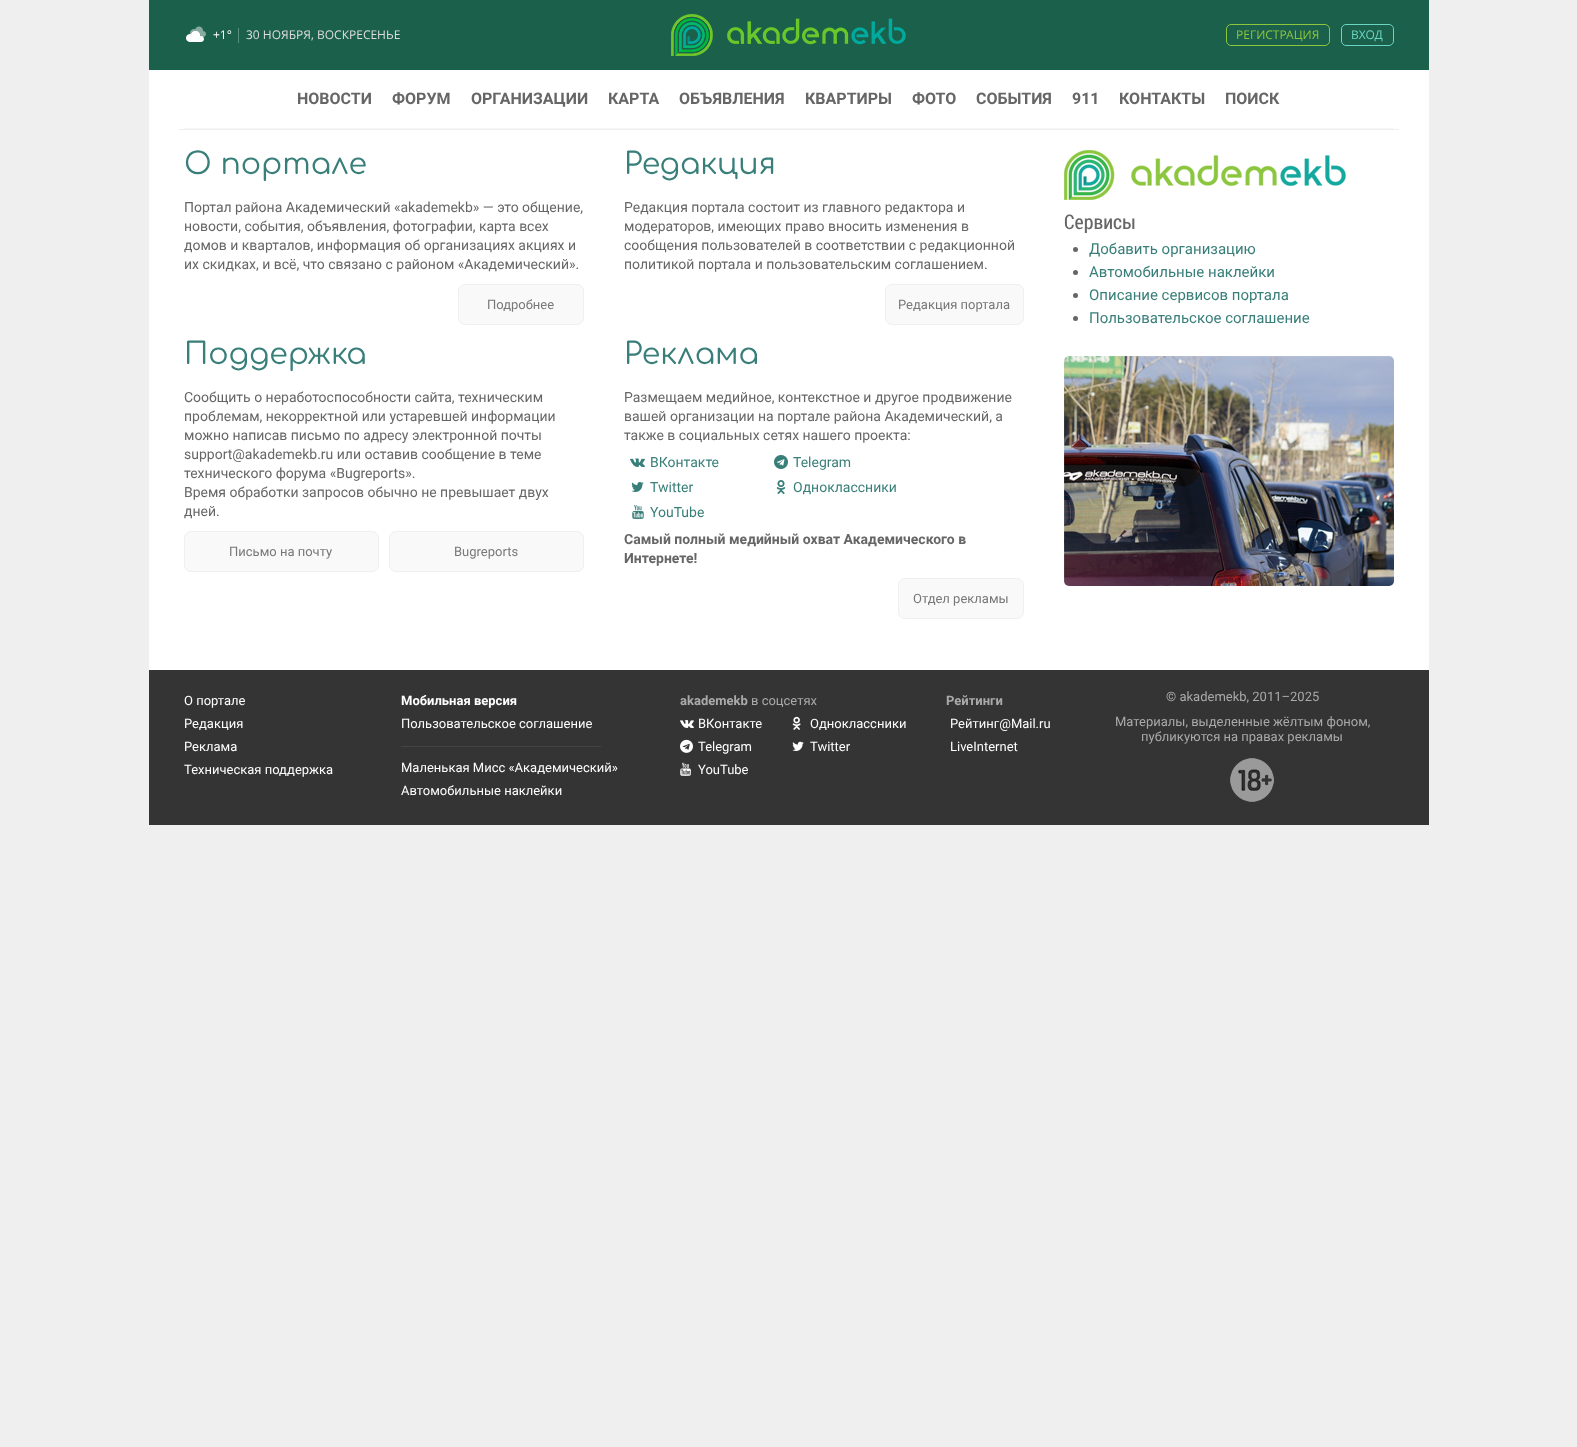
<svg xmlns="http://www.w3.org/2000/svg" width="1577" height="1447">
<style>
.a{font:12px Open Sans;fill:#fff}
.b{font:12px Open Sans;fill:#ddd}
.c{font:12px Open Sans;fill:#8cc63f}
.d{font:12px Open Sans;fill:#6bd5c4}
.e{font:bold 16px Roboto;fill:#666}
.f{font:30px Comfortaa;fill:#387e79}
.g{font:14px Roboto;fill:#666}
.h{font:13px Roboto;fill:#777}
.i{font:20px Roboto Condensed;fill:#666}
.j{font:15px Roboto;fill:#387e79}
.k{font:14px Roboto;fill:#387e79}
.l{font:bold 14px Roboto;fill:#666}
.m{font:13px Roboto;fill:#fff}
.n{font:bold 13px Roboto;fill:#fff}
.o{font:bold 13px Roboto;fill:#aaa}
.p{font:13px Roboto;fill:#aaa}
</style>
<rect width="100%" height="100%" fill="#efefef"/>
<path fill="#fff" d="M149 70h1280v600H149z"/>
<path fill="#1b604a" d="M149 0h1280v70H149z"/>
<image href="1.png" x="186" y="26" width="20" height="16"/>
<path fill="#578f7e" d="M238 28h1v15H238z"/>
<image href="2.png" x="671" y="14" width="235" height="42"/>
<rect fill="none" stroke="#8cc63f" x="1226.5" y="24.5" width="103" height="21" rx="4.5"/>
<rect fill="none" stroke="#6bd5c4" x="1341.5" y="24.5" width="52" height="21" rx="4.5"/>
<path fill="#f6f6f6" d="M184 128h1210v1H184z"/>
<path fill="#efefef" d="M179 129h1220v1H179z"/>
<rect fill="#f9f9f9" stroke="#efefef" x="458.5" y="284.5" width="125" height="40" rx="6.5"/>
<rect fill="#f9f9f9" stroke="#efefef" x="885.5" y="284.5" width="138" height="40" rx="6.5"/>
<image href="3.png" x="1064" y="150" width="282" height="50"/>
<circle fill="#666" cx="1075.5" cy="249.5" r="2.5"/>
<circle fill="#666" cx="1075.5" cy="272.5" r="2.5"/>
<circle fill="#666" cx="1075.5" cy="295.5" r="2.5"/>
<circle fill="#666" cx="1075.5" cy="318.5" r="2.5"/>
<image href="4.png" x="1064" y="356" width="330" height="230"/>
<rect fill="#f9f9f9" stroke="#efefef" x="184.5" y="531.5" width="194" height="40" rx="6.5"/>
<rect fill="#f9f9f9" stroke="#efefef" x="389.5" y="531.5" width="194" height="40" rx="6.5"/>
<image href="5.png" x="630" y="458" width="15" height="9"/>
<image href="6.png" x="774" y="455" width="14" height="14"/>
<image href="7.png" x="631" y="482" width="13" height="10"/>
<image href="8.png" x="776" y="480" width="10" height="14"/>
<image href="9.png" x="632" y="505" width="12" height="14"/>
<rect fill="#f9f9f9" stroke="#efefef" x="898.5" y="578.5" width="125" height="40" rx="6.5"/>
<path fill="#343434" d="M149 670h1280v155H149z"/>
<path fill="#444" d="M401 746h200v1H401z"/>
<image href="10.png" x="680" y="720" width="14" height="8"/>
<image href="11.png" x="680" y="739" width="13" height="14"/>
<image href="12.png" x="680" y="762" width="11" height="14"/>
<image href="13.png" x="792" y="716" width="9" height="14"/>
<image href="14.png" x="792" y="741" width="12" height="10"/>
<image href="15.png" x="1230" y="758" width="44" height="44"/>
<text class="a" x="213" y="39">+1°</text>
<text class="b" x="246" y="39">30 НОЯБРЯ, ВОСКРЕСЕНЬЕ</text>
<text class="c" x="1236" y="39">РЕГИСТРАЦИЯ</text>
<text class="d" x="1351" y="39">ВХОД</text>
<text class="e" x="297" y="104">НОВОСТИ</text>
<text class="e" x="392" y="104">ФОРУМ</text>
<text class="e" x="471" y="104">ОРГАНИЗАЦИИ</text>
<text class="e" x="608" y="104">КАРТА</text>
<text class="e" x="679" y="104">ОБЪЯВЛЕНИЯ</text>
<text class="e" x="805" y="104">КВАРТИРЫ</text>
<text class="e" x="912" y="104">ФОТО</text>
<text class="e" x="976" y="104">СОБЫТИЯ</text>
<text class="e" x="1072" y="104">911</text>
<text class="e" x="1119" y="104">КОНТАКТЫ</text>
<text class="e" x="1225" y="104">ПОИСК</text>
<text class="f" x="184" y="174">О портале</text>
<text class="g" x="184" y="212">Портал района Академический «akademekb» — это общение,</text>
<text class="g" x="184" y="231">новости, события, объявления, фотографии, карта всех</text>
<text class="g" x="184" y="250">домов и кварталов, информация об организациях акциях и</text>
<text class="g" x="184" y="269">их скидках, и всё, что связано с районом «Академический».</text>
<text class="h" x="487" y="309">Подробнее</text>
<text class="f" x="624" y="174">Редакция</text>
<text class="g" x="624" y="212">Редакция портала состоит из главного редактора и</text>
<text class="g" x="624" y="231">модераторов, имеющих право вносить изменения в</text>
<text class="g" x="624" y="250">сообщения пользователей в соответствии с редакционной</text>
<text class="g" x="624" y="269">политикой портала и пользовательским соглашением.</text>
<text class="h" x="898" y="309">Редакция портала</text>
<text class="i" x="1064" y="229">Сервисы</text>
<text class="j" x="1089" y="254">Добавить организацию</text>
<text class="j" x="1089" y="277">Автомобильные наклейки</text>
<text class="j" x="1089" y="300">Описание сервисов портала</text>
<text class="j" x="1089" y="323">Пользовательское соглашение</text>
<text class="f" x="184" y="364">Поддержка</text>
<text class="g" x="184" y="402">Сообщить о неработоспособности сайта, техническим</text>
<text class="g" x="184" y="421">проблемам, некорректной или устаревшей информации</text>
<text class="g" x="184" y="440">можно написав письмо по адресу электронной почты</text>
<text class="g" x="184" y="459">support@akademekb.ru или оставив сообщение в теме</text>
<text class="g" x="184" y="478">технического форума «Bugreports».</text>
<text class="g" x="184" y="497">Время обработки запросов обычно не превышает двух</text>
<text class="g" x="184" y="516">дней.</text>
<text class="h" x="229" y="556">Письмо на почту</text>
<text class="h" x="454" y="556">Bugreports</text>
<text class="f" x="624" y="364">Реклама</text>
<text class="g" x="624" y="402">Размещаем медийное, контекстное и другое продвижение</text>
<text class="g" x="624" y="421">вашей организации на портале района Академический, а</text>
<text class="g" x="624" y="440">также в социальных сетях нашего проекта:</text>
<text class="k" x="650" y="467">ВКонтакте</text>
<text class="k" x="793" y="467">Telegram</text>
<text class="k" x="650" y="492">Twitter</text>
<text class="k" x="793" y="492">Одноклассники</text>
<text class="k" x="650" y="517">YouTube</text>
<text class="l" x="624" y="544">Самый полный медийный охват Академического в</text>
<text class="l" x="624" y="563">Интернете!</text>
<text class="h" x="913" y="603">Отдел рекламы</text>
<text class="m" x="184" y="705">О портале</text>
<text class="m" x="184" y="728">Редакция</text>
<text class="m" x="184" y="751">Реклама</text>
<text class="m" x="184" y="774">Техническая поддержка</text>
<text class="n" x="401" y="705">Мобильная версия</text>
<text class="m" x="401" y="728">Пользовательское соглашение</text>
<text class="m" x="401" y="772">Маленькая Мисс «Академический»</text>
<text class="m" x="401" y="795">Автомобильные наклейки</text>
<text class="o" x="680" y="705">akademekb</text>
<text class="p" x="751" y="705">в соцсетях</text>
<text class="m" x="698" y="728">ВКонтакте</text>
<text class="m" x="698" y="751">Telegram</text>
<text class="m" x="698" y="774">YouTube</text>
<text class="m" x="810" y="728">Одноклассники</text>
<text class="m" x="810" y="751">Twitter</text>
<text class="o" x="946" y="705">Рейтинги</text>
<text class="m" x="950" y="728">Рейтинг@Mail.ru</text>
<text class="m" x="950" y="751">LiveInternet</text>
<text class="p" x="1166" y="701">© akademekb, 2011–2025</text>
<text class="p" x="1115" y="726">Материалы, выделенные жёлтым фоном,</text>
<text class="p" x="1141" y="741">публикуются на правах рекламы</text>
</svg>
